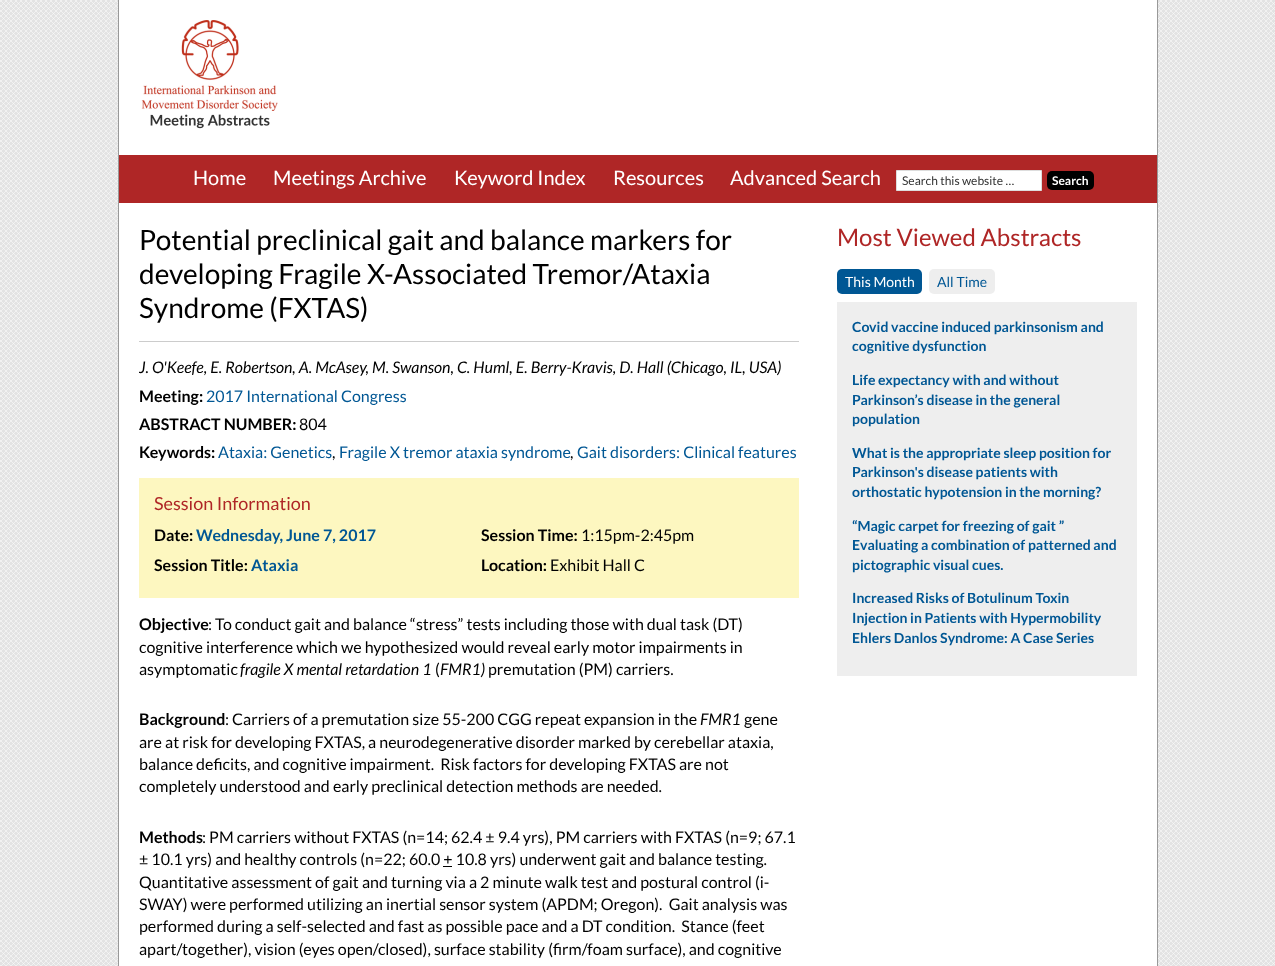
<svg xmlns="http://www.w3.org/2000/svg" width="1275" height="966">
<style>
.a{font:20px Lato;fill:#fff}
.b{font:12px Lato;fill:#333}
.c{font:bold 12px Lato;fill:#fff}
.d{font:28px Lato;fill:#000}
.e{font:italic 16px Lato;fill:#000}
.f{font:bold 16px Lato;fill:#000}
.g{font:16px Lato;fill:#005794}
.h{font:16px Lato;fill:#000}
.i{font:18px Lato;fill:#af2626}
.j{font:bold 16px Lato;fill:#005794}
.k{font:24px Lato;fill:#af2626}
.l{font:14px Lato;fill:#fff}
.m{font:14px Lato;fill:#005794}
.n{font:bold 14px Lato;fill:#005794}
</style>
<rect width="100%" height="100%" fill="#fff"/>
<image href="1.png" x="0" y="0" width="1275" height="966"/>
<path fill="#fff" d="M119 0h1038v155H119z"/>
<path fill="#999" d="M1157 0h1v966H1157z"/>
<path fill="#999" d="M118 0h1v966H118z"/>
<image href="2.png" x="141" y="20" width="137" height="109"/>
<path fill="#af2626" d="M119 155h1038v48H119z"/>
<path fill="#fff" stroke="#ddd" d="M896.5 170.5h145v20H896.5z"/>
<rect fill="#000" x="1047" y="171" width="47" height="19" rx="5"/>
<path fill="#fff" d="M119 203h1038v763H119z"/>
<path fill="#ccc" d="M139 341h660v1H139z"/>
<path fill="#fdf7c0" d="M139 478h660v120H139z"/>
<path fill="#000" d="M443 866h9v1H443z"/>
<rect fill="#005794" x="837" y="269" width="85" height="25" rx="5"/>
<rect fill="#eee" x="929" y="269" width="66" height="25" rx="5"/>
<path fill="#eee" d="M837 302h300v374H837z"/>
<text class="a" x="193" y="185">Home</text>
<text class="a" x="273" y="185">Meetings Archive</text>
<text class="a" x="454" y="185">Keyword Index</text>
<text class="a" x="613" y="185">Resources</text>
<text class="a" x="730" y="185">Advanced Search</text>
<text class="b" x="902" y="185">Search this website …</text>
<text class="c" x="1052" y="185">Search</text>
<text class="d" x="139" y="250">Potential preclinical gait and balance markers for</text>
<text class="d" x="139" y="284">developing Fragile X-Associated Tremor/Ataxia</text>
<text class="d" x="139" y="318">Syndrome (FXTAS)</text>
<text class="e" x="139" y="373">J. O'Keefe, E. Robertson, A. McAsey, M. Swanson, C. Huml, E. Berry-Kravis, D. Hall (Chicago, IL, USA)</text>
<text class="f" x="139" y="402">Meeting:</text>
<text class="g" x="206" y="402">2017 International Congress</text>
<text class="f" x="139" y="430">ABSTRACT NUMBER:</text>
<text class="h" x="299" y="430">804</text>
<text class="f" x="139" y="458">Keywords:</text>
<text class="g" x="218" y="458">Ataxia: Genetics</text>
<text class="h" x="332" y="458">,</text>
<text class="g" x="339" y="458">Fragile X tremor ataxia syndrome</text>
<text class="h" x="570" y="458">,</text>
<text class="g" x="577" y="458">Gait disorders: Clinical features</text>
<text class="i" x="154" y="510">Session Information</text>
<text class="f" x="154" y="541">Date:</text>
<text class="j" x="196" y="541">Wednesday, June 7, 2017</text>
<text class="f" x="154" y="571">Session Title:</text>
<text class="j" x="251" y="571">Ataxia</text>
<text class="f" x="481" y="541">Session Time:</text>
<text class="h" x="581" y="541">1:15pm-2:45pm</text>
<text class="f" x="481" y="571">Location:</text>
<text class="h" x="550" y="571">Exhibit Hall C</text>
<text class="f" x="139" y="630">Objective</text>
<text class="h" x="208" y="630">: To conduct gait and balance “stress” tests including those with dual task (DT)</text>
<text class="h" x="139" y="653">cognitive interference which we hypothesized would reveal early motor impairments in</text>
<text class="h" x="139" y="675">asymptomatic</text>
<text class="e" x="240" y="675">fragile X mental retardation 1</text>
<text class="h" x="435" y="675">(</text>
<text class="e" x="440" y="675">FMR1)</text>
<text class="h" x="488" y="675">premutation (PM) carriers.</text>
<text class="f" x="139" y="725">Background</text>
<text class="h" x="225" y="725">: Carriers of a premutation size 55-200 CGG repeat expansion in the</text>
<text class="e" x="700" y="725">FMR1</text>
<text class="h" x="744" y="725">gene</text>
<text class="h" x="139" y="748">are at risk for developing FXTAS, a neurodegenerative disorder marked by cerebellar ataxia,</text>
<text class="h" xml:space="preserve" x="139" y="770">balance deficits, and cognitive impairment.  Risk factors for developing FXTAS are not</text>
<text class="h" x="139" y="792">completely understood and early preclinical detection methods are needed.</text>
<text class="f" x="139" y="843">Methods</text>
<text class="h" x="202" y="843">: PM carriers without FXTAS (n=14; 62.4 ± 9.4 yrs), PM carriers with FXTAS (n=9; 67.1</text>
<text class="h" x="139" y="865">± 10.1 yrs) and healthy controls (n=22; 60.0 + 10.8 yrs) underwent gait and balance testing.</text>
<text class="h" x="139" y="888">Quantitative assessment of gait and turning via a 2 minute walk test and postural control (i-</text>
<text class="h" xml:space="preserve" x="139" y="910">SWAY) were performed utilizing an inertial sensor system (APDM; Oregon).  Gait analysis was</text>
<text class="h" xml:space="preserve" x="139" y="932">performed during a self-selected and fast as possible pace and a DT condition.  Stance (feet</text>
<text class="h" x="139" y="955">apart/together), vision (eyes open/closed), surface stability (firm/foam surface), and cognitive</text>
<text class="k" x="837" y="246">Most Viewed Abstracts</text>
<text class="l" x="845" y="287">This Month</text>
<text class="m" x="937" y="287">All Time</text>
<text class="n" x="852" y="332">Covid vaccine induced parkinsonism and</text>
<text class="n" x="852" y="351">cognitive dysfunction</text>
<text class="n" x="852" y="385">Life expectancy with and without</text>
<text class="n" x="852" y="405">Parkinson’s disease in the general</text>
<text class="n" x="852" y="424">population</text>
<text class="n" x="852" y="458">What is the appropriate sleep position for</text>
<text class="n" x="852" y="477">Parkinson's disease patients with</text>
<text class="n" x="852" y="497">orthostatic hypotension in the morning?</text>
<text class="n" x="852" y="531">“Magic carpet for freezing of gait ”</text>
<text class="n" x="852" y="550">Evaluating a combination of patterned and</text>
<text class="n" x="852" y="570">pictographic visual cues.</text>
<text class="n" x="852" y="603">Increased Risks of Botulinum Toxin</text>
<text class="n" x="852" y="623">Injection in Patients with Hypermobility</text>
<text class="n" x="852" y="643">Ehlers Danlos Syndrome: A Case Series</text>
</svg>
